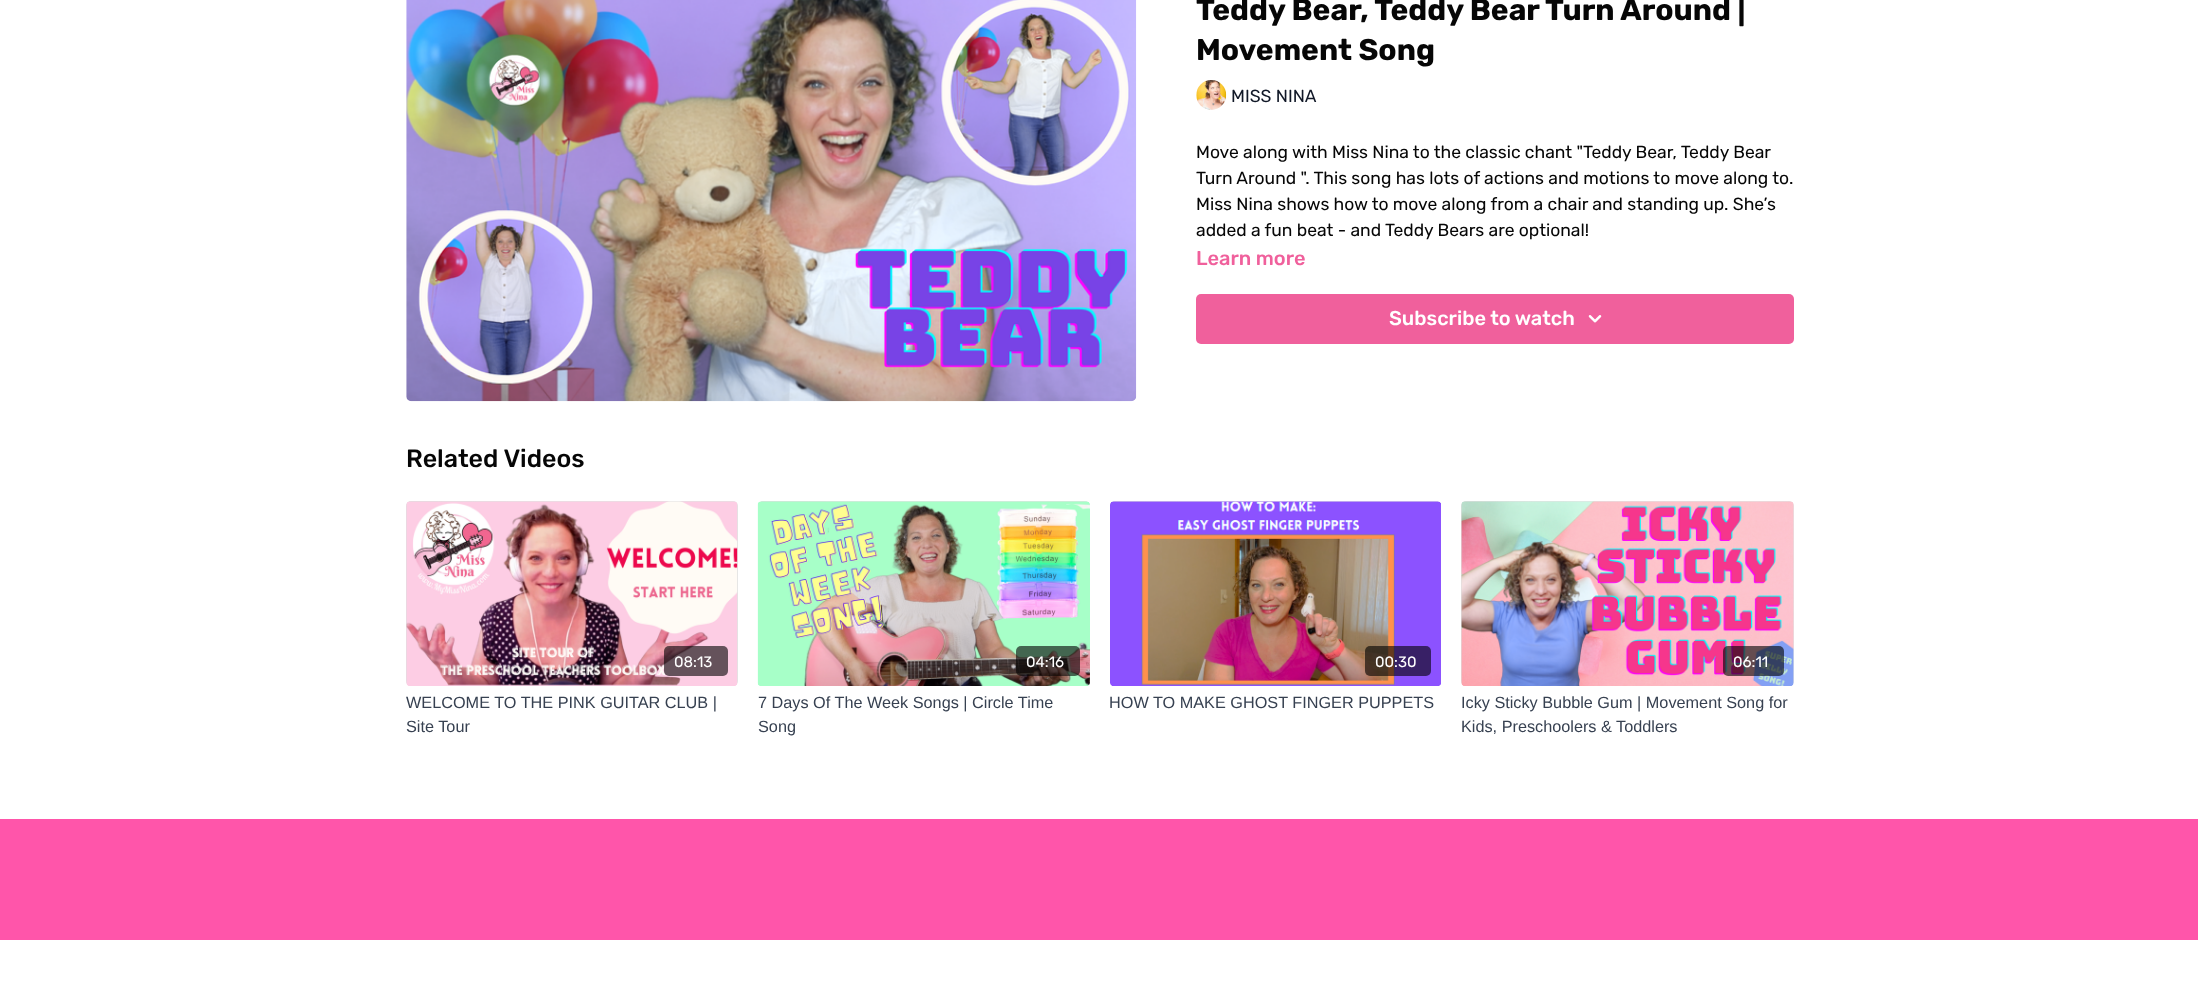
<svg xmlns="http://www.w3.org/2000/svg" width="2198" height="989">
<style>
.a{font:bold 30px Rubik;fill:#060606}
.b{font:17.5px Rubik;fill:#111827}
.c{font:17.5px Rubik;fill:#060606}
.d{font:500 20px Rubik;fill:#f0609c}
.e{font:500 20px Rubik;fill:#fff}
.f{font:500 25px Rubik;fill:#060606}
.g{font:15px Rubik;fill:#fff}
.h{font:16.25px Liberation Sans;fill:#374151}
</style>
<defs>
<linearGradient id="g1" gradientUnits="userSpaceOnUse" x1="406" y1="594" x2="738" y2="594"><stop offset="0.08" stop-color="#dedede"/><stop offset="0.18" stop-color="#e0e0e0"/><stop offset="0.33" stop-color="#e3e3e3"/></linearGradient>
<linearGradient id="g2" gradientUnits="userSpaceOnUse" x1="758" y1="594" x2="1090" y2="594"><stop offset="0.08" stop-color="#dedede"/><stop offset="0.18" stop-color="#e0e0e0"/><stop offset="0.33" stop-color="#e3e3e3"/></linearGradient>
<linearGradient id="g3" gradientUnits="userSpaceOnUse" x1="1110" y1="594" x2="1441" y2="594"><stop offset="0.08" stop-color="#dedede"/><stop offset="0.18" stop-color="#e0e0e0"/><stop offset="0.33" stop-color="#e3e3e3"/></linearGradient>
<linearGradient id="g4" gradientUnits="userSpaceOnUse" x1="1461" y1="594" x2="1794" y2="594"><stop offset="0.08" stop-color="#dedede"/><stop offset="0.18" stop-color="#e0e0e0"/><stop offset="0.33" stop-color="#e3e3e3"/></linearGradient>
</defs>
<rect width="100%" height="100%" fill="#f5a"/>
<path fill="#fff" d="M0 0h2198v819H0z"/>
<image href="1.png" x="406" y="0" width="731" height="402"/>
<image href="2.png" x="1196" y="80" width="31" height="30"/>
<rect fill="#f0609c" x="1196" y="294" width="598" height="50" rx="5"/>
<image href="3.png" x="1588" y="315" width="14" height="8"/>
<rect fill="url(#g1)" x="406" y="501" width="332" height="185" rx="5"/>
<image href="4.png" x="406" y="501" width="332" height="185"/>
<rect fill="#00000099" x="664" y="646" width="64" height="30" rx="5"/>
<rect fill="url(#g2)" x="758" y="501" width="332" height="185" rx="5"/>
<image href="5.png" x="757" y="501" width="333" height="185"/>
<rect fill="#00000099" x="1016" y="646" width="64" height="30" rx="5"/>
<rect fill="url(#g3)" x="1110" y="501" width="331" height="185" rx="5"/>
<image href="6.png" x="1110" y="501" width="331" height="185"/>
<rect fill="#00000099" x="1365" y="646" width="66" height="30" rx="5"/>
<rect fill="url(#g4)" x="1461" y="501" width="333" height="185" rx="5"/>
<image href="7.png" x="1461" y="501" width="333" height="185"/>
<rect fill="#00000099" x="1723" y="646" width="61" height="30" rx="5"/>
<path fill="#fff" d="M0 940h2198v49H0z"/>
<text class="a" x="1196" y="20">Teddy Bear, Teddy Bear Turn Around |</text>
<text class="a" x="1196" y="60">Movement Song</text>
<text class="b" x="1231" y="102">MISS NINA</text>
<text class="c" x="1196" y="158">Move along with Miss Nina to the classic chant "Teddy Bear, Teddy Bear</text>
<text class="c" x="1196" y="184">Turn Around ". This song has lots of actions and motions to move along to.</text>
<text class="c" x="1196" y="210">Miss Nina shows how to move along from a chair and standing up. She’s</text>
<text class="c" x="1196" y="236">added a fun beat - and Teddy Bears are optional!</text>
<text class="d" x="1196" y="265">Learn more</text>
<text class="e" x="1389" y="325">Subscribe to watch</text>
<text class="f" x="406" y="467">Related Videos</text>
<text class="g" x="674" y="667">08:13</text>
<text class="h" x="406" y="708">WELCOME TO THE PINK GUITAR CLUB |</text>
<text class="h" x="406" y="732">Site Tour</text>
<text class="g" x="1026" y="667">04:16</text>
<text class="h" x="758" y="708">7 Days Of The Week Songs | Circle Time</text>
<text class="h" x="758" y="732">Song</text>
<text class="g" x="1375" y="667">00:30</text>
<text class="h" x="1109" y="708">HOW TO MAKE GHOST FINGER PUPPETS</text>
<text class="g" x="1733" y="667">06:11</text>
<text class="h" x="1461" y="708">Icky Sticky Bubble Gum | Movement Song for</text>
<text class="h" x="1461" y="732">Kids, Preschoolers &amp; Toddlers</text>
</svg>
